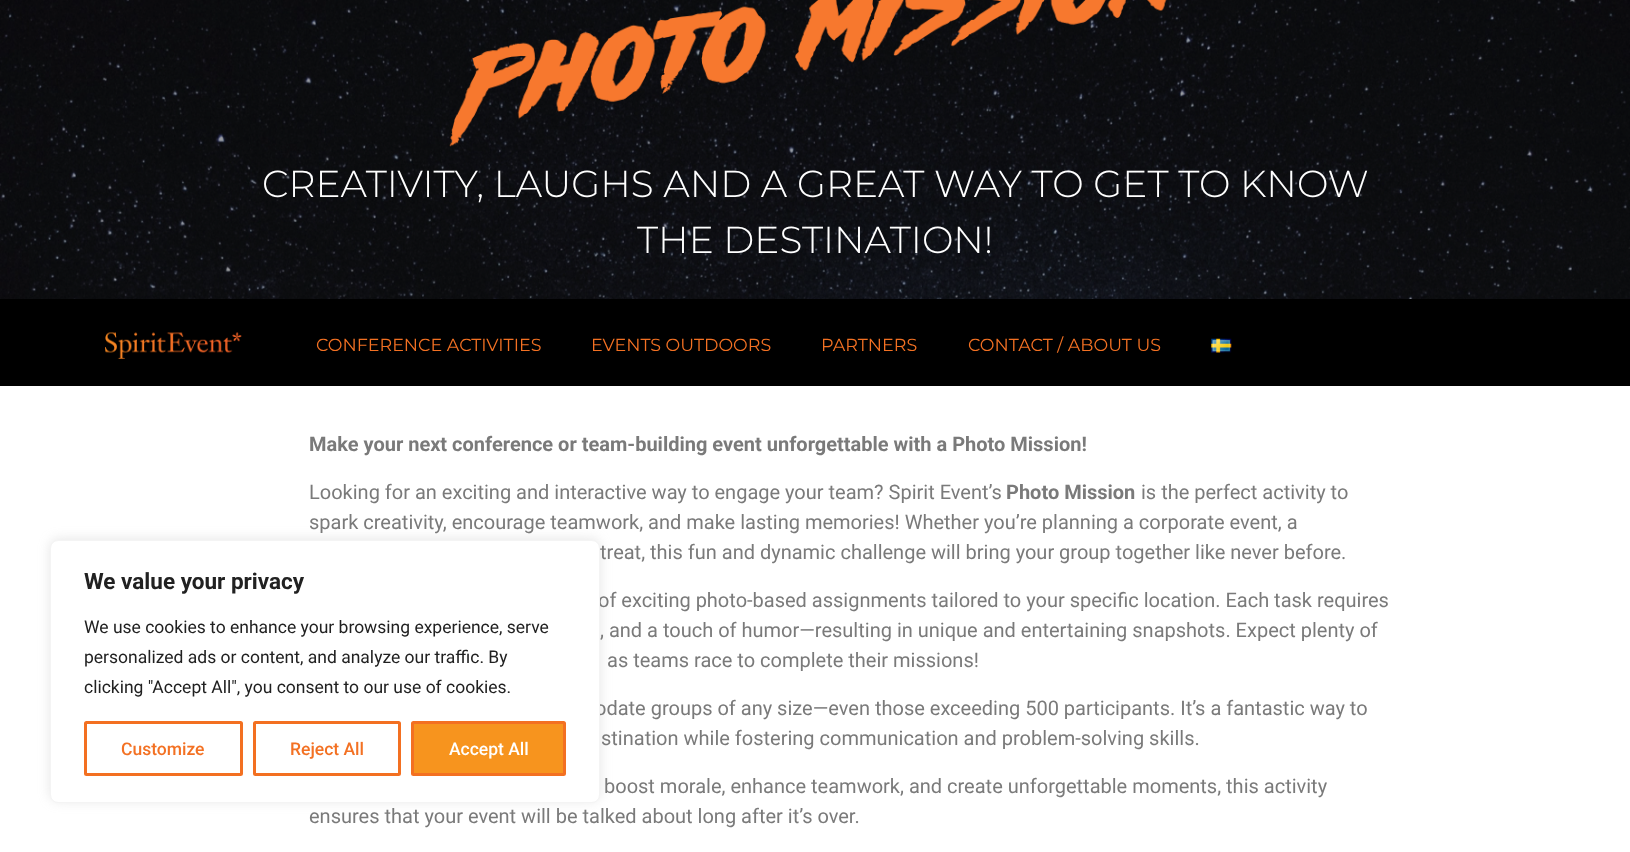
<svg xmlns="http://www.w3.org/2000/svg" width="1630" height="852">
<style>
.a{font:300 37.5px Montserrat;fill:#fff}
.b{font:17.5px Montserrat;fill:#f37123}
.c{font:bold 20px Roboto;fill:#7a7a7a}
.d{font:20px Roboto;fill:#7a7a7a}
.e{font:bold 22.5px Roboto;fill:#212121}
.f{font:17.5px Roboto;fill:#212121}
.g{font:500 17.5px Roboto;fill:#f37123}
.h{font:500 17.5px Roboto;fill:#fff}
</style>
<rect width="100%" height="100%" fill="#fff"/>
<image href="1.png" x="0" y="0" width="1630" height="299"/>
<image href="2.png" x="449" y="0" width="718" height="147"/>
<path fill="#000" d="M0 299h1630v87H0z"/>
<image href="3.png" x="105" y="332" width="137" height="27"/>
<image href="4.png" x="1211" y="338" width="21" height="15"/>
<rect fill="#acabab4d" filter="blur(6px)" x="50" y="539" width="550" height="262" rx="8"/>
<text class="a" x="262" y="197">CREATIVITY, LAUGHS AND A GREAT WAY TO GET TO KNOW</text>
<text class="a" x="637" y="253">THE DESTINATION!</text>
<text class="b" x="316" y="351">CONFERENCE ACTIVITIES</text>
<text class="b" x="591" y="351">EVENTS OUTDOORS</text>
<text class="b" x="821" y="351">PARTNERS</text>
<text class="b" x="968" y="351">CONTACT / ABOUT US</text>
<text class="c" x="309" y="451">Make your next conference or team-building event unforgettable with a Photo Mission!</text>
<text class="d" x="309" y="499">Looking for an exciting and interactive way to engage your team? Spirit Event’s</text>
<text class="c" x="1006" y="499">Photo Mission</text>
<text class="d" x="1141" y="499">is the perfect activity to</text>
<text class="d" x="309" y="529">spark creativity, encourage teamwork, and make lasting memories! Whether you’re planning a corporate event, a</text>
<text class="d" x="600" y="559">treat, this fun and dynamic challenge will bring your group together like never before.</text>
<text class="d" x="598" y="607">of exciting photo-based assignments tailored to your specific location. Each task requires</text>
<text class="d" x="600" y="637">, and a touch of humor—resulting in unique and entertaining snapshots. Expect plenty of</text>
<text class="d" x="607" y="667">as teams race to complete their missions!</text>
<text class="d" x="595" y="715">odate groups of any size—even those exceeding 500 participants. It’s a fantastic way to</text>
<text class="d" x="601" y="745">stination while fostering communication and problem-solving skills.</text>
<text class="d" x="604" y="793">boost morale, enhance teamwork, and create unforgettable moments, this activity</text>
<text class="d" x="309" y="823">ensures that your event will be talked about long after it’s over.</text>
<rect fill="#fff" stroke="#f4f4f4" x="50.5" y="540.5" width="549" height="262" rx="7.5"/>
<text class="e" x="84" y="589">We value your privacy</text>
<text class="f" x="84" y="633">We use cookies to enhance your browsing experience, serve</text>
<text class="f" x="84" y="663">personalized ads or content, and analyze our traffic. By</text>
<text class="f" x="84" y="693">clicking "Accept All", you consent to our use of cookies.</text>
<rect fill="none" stroke="#f37021" stroke-width="3" x="85.5" y="722.5" width="156" height="52" rx="1"/>
<text class="g" x="121" y="755">Customize</text>
<rect fill="none" stroke="#f37021" stroke-width="3" x="254.5" y="722.5" width="145" height="52" rx="1"/>
<text class="g" x="290" y="755">Reject All</text>
<rect fill="#f7941e" stroke="#f37021" stroke-width="3" x="412.5" y="722.5" width="152" height="52" rx="1"/>
<text class="h" x="449" y="755">Accept All</text>
</svg>
